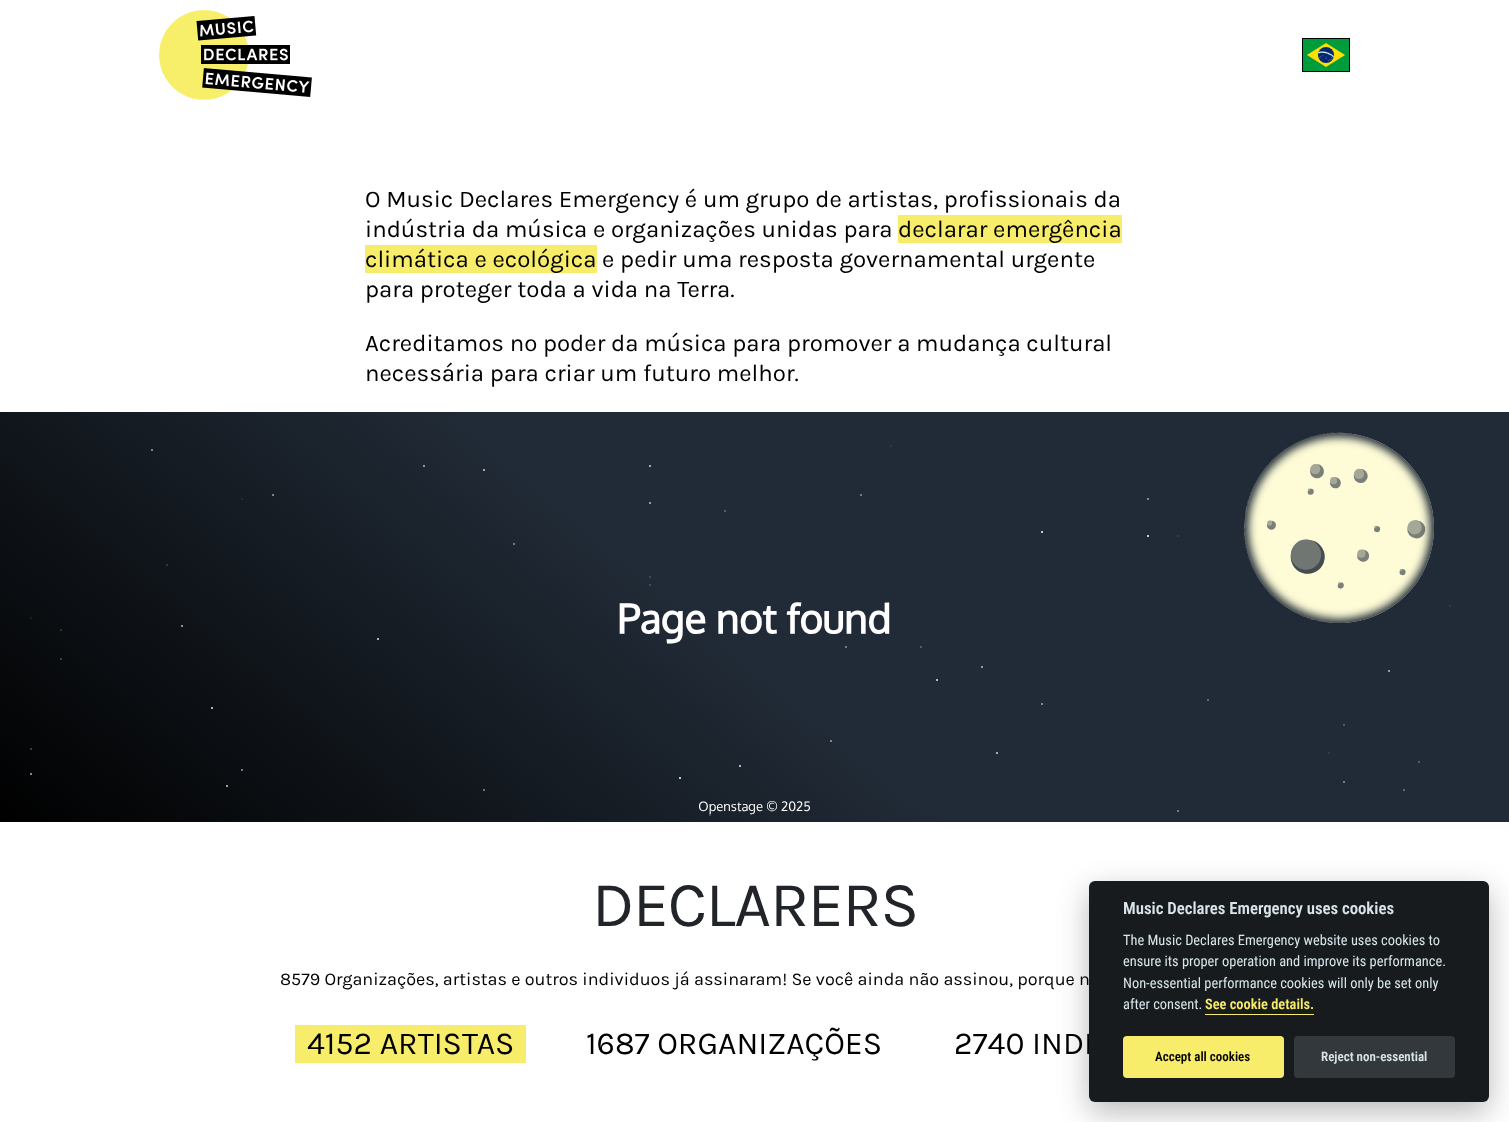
<svg xmlns="http://www.w3.org/2000/svg" width="1509" height="1122">
<style>
.a{font:24px Karla;fill:#000}
.b{font:64px Karla;letter-spacing:-1.25px;fill:#212529}
.c{font:18px Karla;fill:#000}
.d{font:32px Karla;fill:#000}
.e{font:600 16.75px Roboto Condensed;fill:#d8e5ea}
.f{font:14.4px Roboto Condensed;fill:#d8e5ea}
.g{font:600 14.4px Roboto Condensed;fill:#f7ed6a}
.h{font:600 13px Roboto Condensed;fill:#000}
.i{font:600 13px Roboto Condensed;fill:#d8e5ea}
</style>
<rect width="100%" height="100%" fill="#fff"/>
<image href="1.png" x="159" y="10" width="153" height="90"/>
<path fill="#000" d="M1302 38h48v34H1302z"/>
<image href="2.png" x="1303" y="39" width="46" height="32"/>
<path fill="#f7ed6a" d="M898 215h224v28H898z"/>
<path fill="#f7ed6a" d="M365 245h232v28H365z"/>
<image href="3.png" x="0" y="412" width="1509" height="410"/>
<path fill="#f7ed6a" d="M295 1025h231v38H295z"/>
<rect fill="#02020347" filter="blur(15px)" x="1089" y="891" width="400" height="221" rx="6"/>
<text class="a" x="365" y="207">O Music Declares Emergency é um grupo de artistas, profissionais da</text>
<text class="a" x="365" y="237">indústria da música e organizações unidas para</text>
<text class="a" x="898" y="237">declarar emergência</text>
<text class="a" x="365" y="267">climática e ecológica e pedir uma resposta governamental urgente</text>
<text class="a" x="365" y="297">para proteger toda a vida na Terra.</text>
<text class="a" x="365" y="351">Acreditamos no poder da música para promover a mudança cultural</text>
<text class="a" x="365" y="381">necessária para criar um futuro melhor.</text>
<text class="b" x="592" y="926">DECLARERS</text>
<text class="c" x="280" y="985">8579 Organizações, artistas e outros individuos já assinaram! Se você ainda não assinou, porque n</text>
<text class="d" x="307" y="1054">4152 ARTISTAS</text>
<text class="d" x="586" y="1054">1687 ORGANIZAÇÕES</text>
<text class="d" x="954" y="1054">2740 INDI</text>
<rect fill="#181b1d" x="1089" y="881" width="400" height="221" rx="6"/>
<text class="e" x="1123" y="914">Music Declares Emergency uses cookies</text>
<text class="f" x="1123" y="945">The Music Declares Emergency website uses cookies to</text>
<text class="f" x="1123" y="966">ensure its proper operation and improve its performance.</text>
<text class="f" x="1123" y="988">Non-essential performance cookies will only be set only</text>
<text class="f" x="1123" y="1009">after consent.</text>
<text class="g" x="1205" y="1009">See cookie details.</text>
<path fill="#f7ed6a" d="M1205 1014h109v1H1205z"/>
<rect fill="#f7ed6a" x="1123" y="1036" width="161" height="42" rx="4"/>
<text class="h" x="1155" y="1061">Accept all cookies</text>
<rect fill="#33383c" x="1294" y="1036" width="161" height="42" rx="4"/>
<text class="i" x="1321" y="1061">Reject non-essential</text>
</svg>
